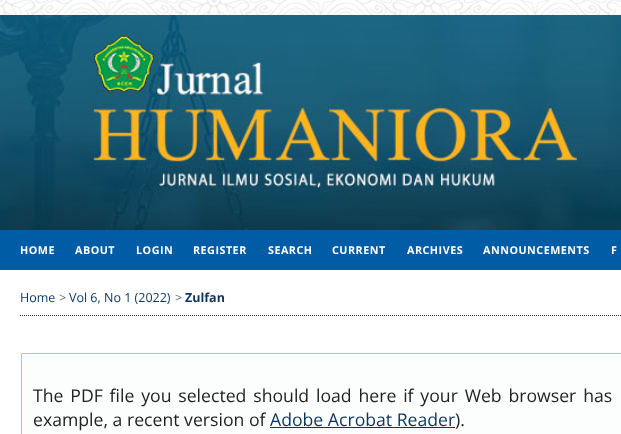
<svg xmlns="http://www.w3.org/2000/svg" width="621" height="434">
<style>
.a{font:bold 10.75px Open Sans;letter-spacing:0.5px;fill:#fff}
.b{font:12.5px Open Sans;fill:#0d355e}
.c{font:12.5px Open Sans;fill:#666}
.d{font:bold 12.5px Open Sans;fill:#0d355e}
.e{font:17.65px Open Sans;fill:#222}
.f{font:17.65px Open Sans;fill:#0d355e}
</style>
<rect width="100%" height="100%" fill="#fff"/>
<image href="1.png" x="0" y="0" width="621" height="15"/>
<image href="2.png" x="0" y="15" width="621" height="215"/>
<path fill="#005ca5" d="M0 230h621v40H0z"/>
<path fill="none" stroke="#333" stroke-dasharray="1 1" d="M20 315.5h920"/>
<path fill="#fcfdfd" stroke="#a6c9e2" d="M21.5 353.5h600v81H21.5z"/>
<path fill="#0d355e" d="M270 427h185v1H270z"/>
<text class="a" x="20" y="254">HOME</text>
<text class="a" x="75" y="254">ABOUT</text>
<text class="a" x="136" y="254">LOGIN</text>
<text class="a" x="193" y="254">REGISTER</text>
<text class="a" x="268" y="254">SEARCH</text>
<text class="a" x="332" y="254">CURRENT</text>
<text class="a" x="407" y="254">ARCHIVES</text>
<text class="a" x="483" y="254">ANNOUNCEMENTS</text>
<text class="a" x="611" y="254">F</text>
<text class="b" x="20" y="302">Home</text>
<text class="c" x="59" y="302">&gt;</text>
<text class="b" x="69" y="302">Vol 6, No 1 (2022)</text>
<text class="c" x="175" y="302">&gt;</text>
<text class="d" x="185" y="302">Zulfan</text>
<text class="e" x="33" y="402" word-spacing="2.25">The PDF file you selected should load here if your Web browser has</text>
<text class="e" x="33" y="426">example, a recent version of</text>
<text class="f" x="270" y="426">Adobe Acrobat Reader</text>
<text class="e" x="455" y="426">).</text>
</svg>
